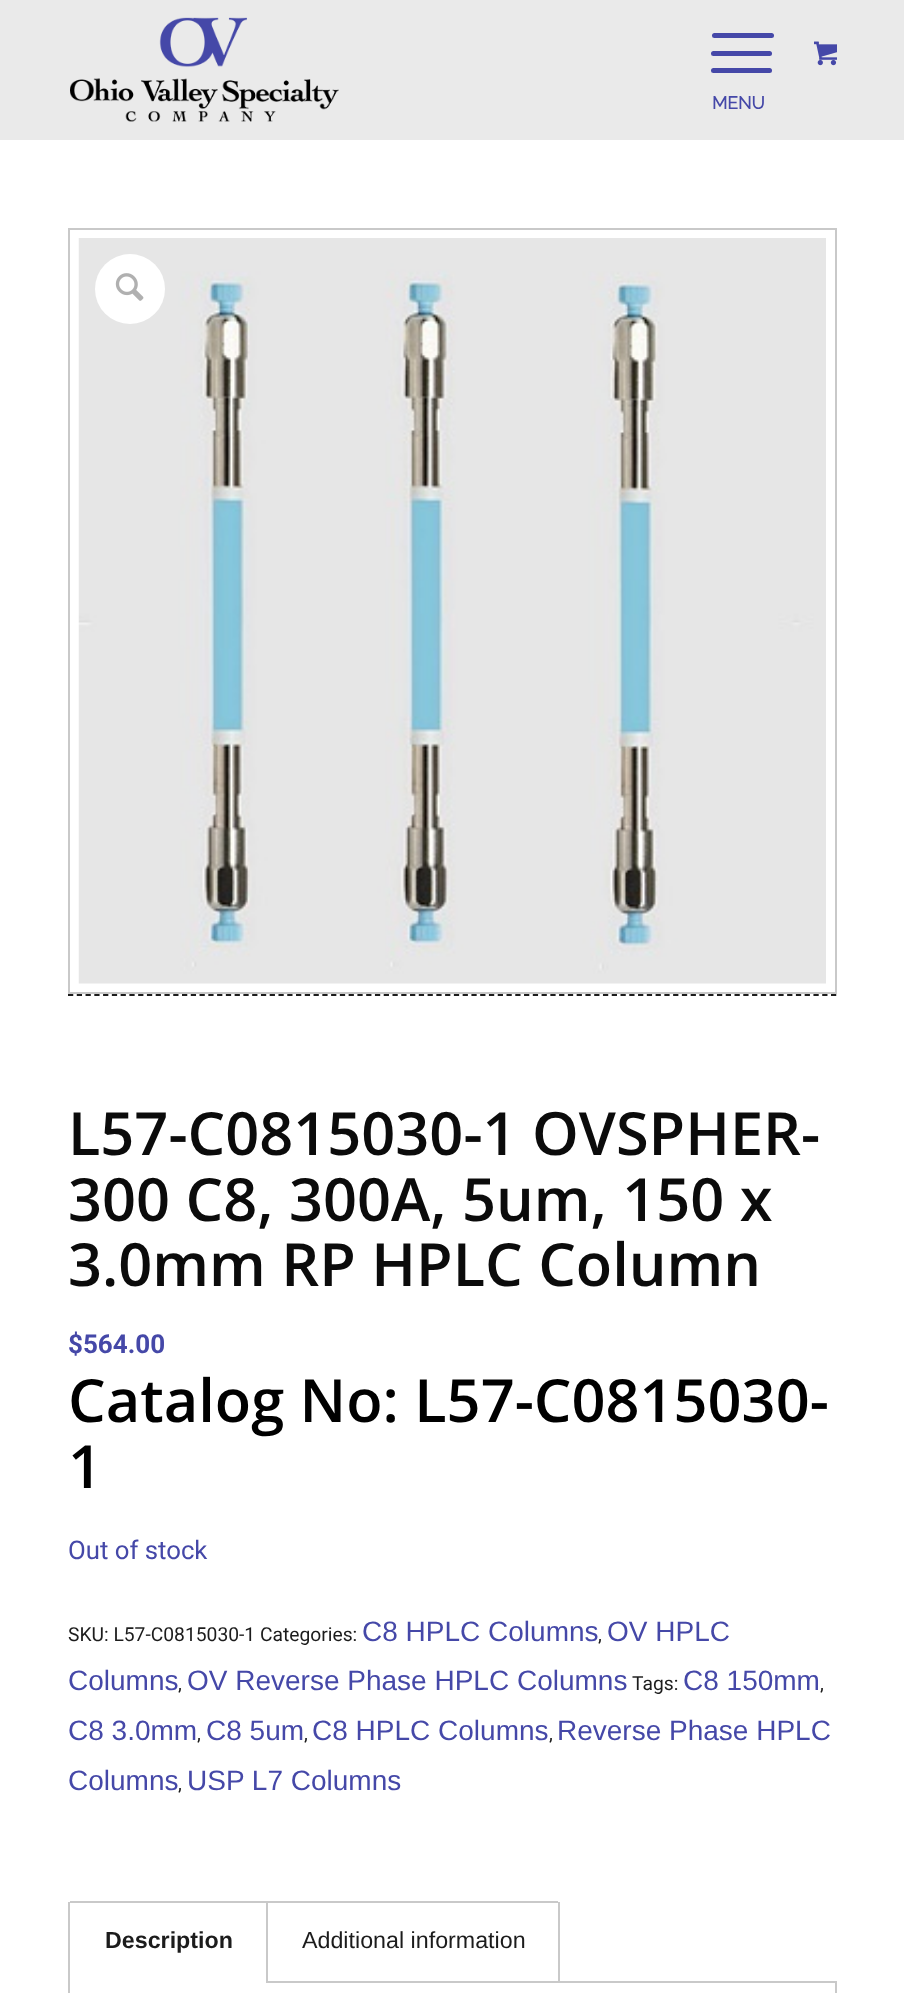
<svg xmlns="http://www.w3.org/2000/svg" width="904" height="1993">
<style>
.a{font:bold 17.5px Raleway;fill:#4548a8}
.b{font:600 59.5px Open Sans;fill:#0b0b0b}
.c{font:bold 26px Roboto;fill:#4548a8}
.d{font:600 59.5px Open Sans;fill:#000}
.e{font:25.75px Roboto;fill:#4548a8}
.f{font:19.25px Roboto;fill:#1c1c1c}
.g{font:28px Liberation Sans;fill:#4548a8}
.h{font:bold 23.25px Liberation Sans;fill:#1c1c1c}
.i{font:23.25px Liberation Sans;fill:#1c1c1c}
</style>
<rect width="100%" height="100%" fill="#fff"/>
<path fill="#eaeaea" d="M0 0h904v140H0z"/>
<image href="1.png" x="70" y="17" width="269" height="105"/>
<image href="2.png" x="814" y="41" width="23" height="25"/>
<rect fill="#4548a8" x="711" y="51" width="61" height="5" rx="2.5"/>
<rect fill="#4548a8" x="711" y="68" width="61" height="5" rx="2.5"/>
<rect fill="#4548a8" x="712" y="33" width="62" height="5" rx="2.5"/>
<path fill="none" stroke="#c9c9c9" stroke-width="2" d="M69 229h767v764H69z"/>
<image href="3.png" x="78" y="238" width="748" height="746"/>
<circle fill="#fff" cx="130" cy="289" r="35"/>
<image href="4.png" x="115" y="273" width="29" height="28"/>
<path fill="none" stroke="#1c1c1c" stroke-width="1.8" stroke-dasharray="5.25 3.52" d="M68 995h768.5"/>
<path fill="none" stroke="#c9c9c9" stroke-width="2" d="M69 1982h767v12H69z"/>
<path fill="#fff" d="M68 1981h198v2H68z"/>
<path fill="#c9c9c9" d="M70 1901h488v2H70z"/>
<path fill="#c9c9c9" d="M266 1901h2v82H266z"/>
<path fill="#c9c9c9" d="M68 1902h2v81H68z"/>
<path fill="#c9c9c9" d="M558 1902h2v81H558z"/>
<text class="a" x="712" y="109">MENU</text>
<text class="b" x="68" y="1155">L57-C0815030-1 OVSPHER-</text>
<text class="b" x="68" y="1221">300 C8, 300A, 5um, 150 x</text>
<text class="b" x="68" y="1286">3.0mm RP HPLC Column</text>
<text class="c" x="68" y="1353">$564.00</text>
<text class="d" x="68" y="1422">Catalog No: L57-C0815030-</text>
<text class="d" x="68" y="1488">1</text>
<text class="e" x="68" y="1559">Out of stock</text>
<text class="f" x="68" y="1641">SKU: L57-C0815030-1 Categories:</text>
<text class="g" x="362" y="1641">C8 HPLC Columns</text>
<text class="f" x="598" y="1641">,</text>
<text class="g" x="607" y="1641">OV HPLC</text>
<text class="g" x="68" y="1690">Columns</text>
<text class="f" x="178" y="1690">,</text>
<text class="g" x="187" y="1690">OV Reverse Phase HPLC Columns</text>
<text class="f" x="632" y="1690">Tags:</text>
<text class="g" x="683" y="1690">C8 150mm</text>
<text class="f" x="820" y="1690">,</text>
<text class="g" x="68" y="1740">C8 3.0mm</text>
<text class="f" x="197" y="1740">,</text>
<text class="g" x="206" y="1740">C8 5um</text>
<text class="f" x="304" y="1740">,</text>
<text class="g" x="312" y="1740">C8 HPLC Columns</text>
<text class="f" x="549" y="1740">,</text>
<text class="g" x="557" y="1740">Reverse Phase HPLC</text>
<text class="g" x="68" y="1790">Columns</text>
<text class="f" x="178" y="1790">,</text>
<text class="g" x="187" y="1790">USP L7 Columns</text>
<text class="h" x="105" y="1948">Description</text>
<text class="i" x="302" y="1948">Additional information</text>
</svg>
